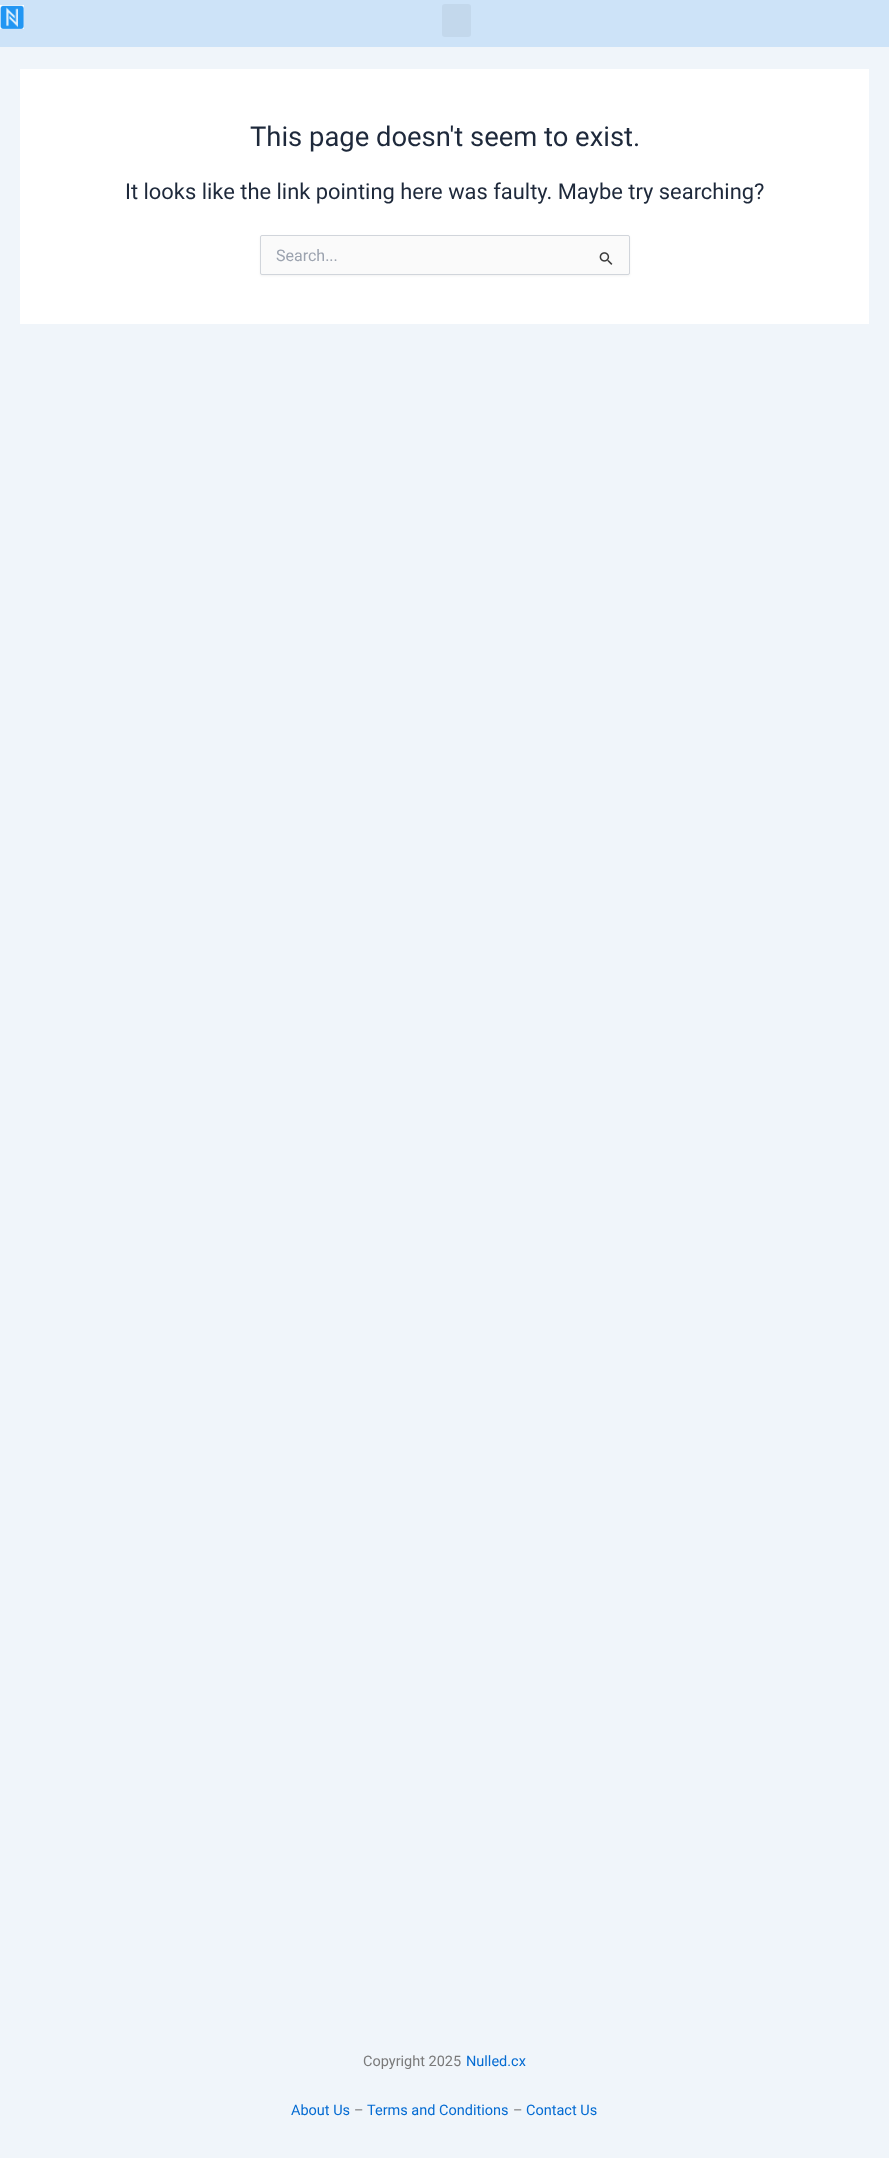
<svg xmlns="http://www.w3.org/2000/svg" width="889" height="2158">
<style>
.a{font:27.4px Roboto;fill:#1e293b}
.b{font:21.9px Roboto;fill:#1e293b}
.c{font:16px Roboto;fill:#9ca3af}
.d{font:14.5px Roboto;fill:#7a7a7a}
.e{font:14.5px Roboto;fill:#046bd2}
</style>
<rect width="100%" height="100%" fill="#f0f5fa"/>
<path fill="#cde3f8" d="M0 0h889v47H0z"/>
<image href="1.png" x="0" y="5" width="24" height="24"/>
<rect fill="#c3d8ec" x="442" y="4" width="29" height="33" rx="3"/>
<path fill="#fff" d="M20 69h849v255H20z"/>
<rect fill="#0000000d" filter="blur(1px)" x="260" y="236" width="370" height="40" rx="2"/>
<rect fill="#fafafa" stroke="#d1d5db" x="260.5" y="235.5" width="369" height="39" rx="1.5"/>
<image href="2.png" x="599" y="252" width="14" height="13"/>
<text class="a" x="250" y="146">This page doesn't seem to exist.</text>
<text class="b" x="125" y="199">It looks like the link pointing here was faulty. Maybe try searching?</text>
<text class="c" x="276" y="261">Search...</text>
<text class="d" x="363" y="2066">Copyright 2025</text>
<text class="e" x="466" y="2066">Nulled.cx</text>
<text class="e" x="291" y="2115">About Us</text>
<text class="d" x="354" y="2115">–</text>
<text class="e" x="367" y="2115">Terms and Conditions</text>
<text class="d" x="513" y="2115">–</text>
<text class="e" x="526" y="2115">Contact Us</text>
</svg>
